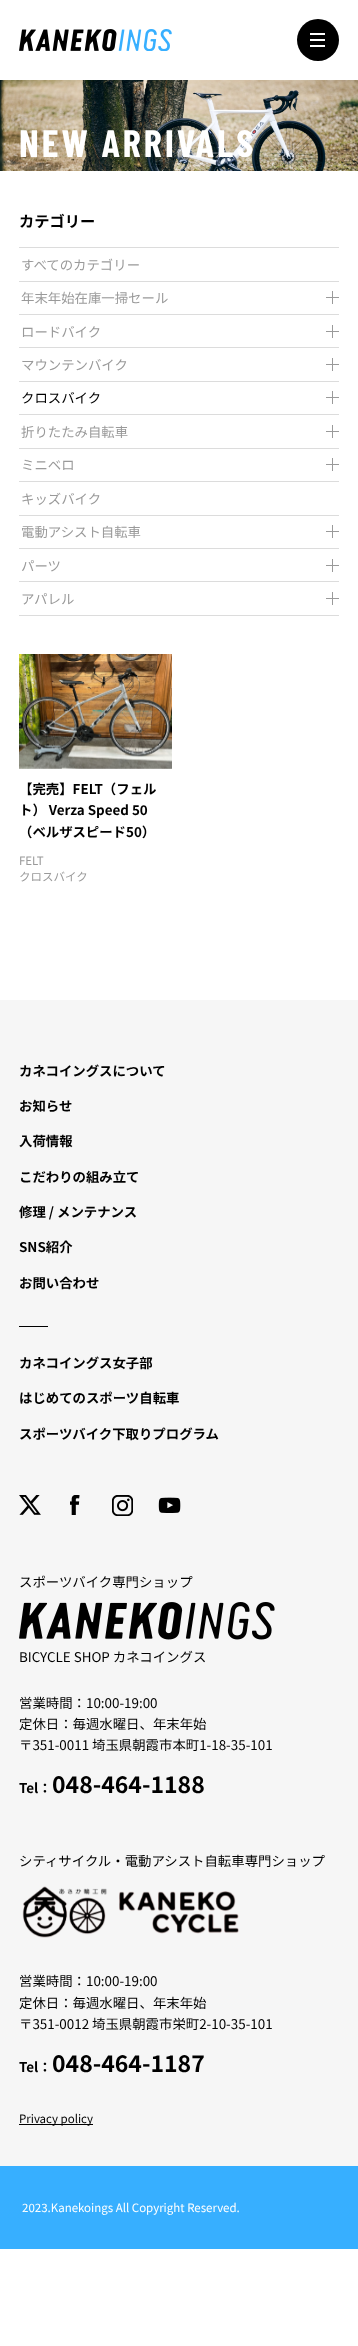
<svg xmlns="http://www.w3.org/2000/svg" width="358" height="2346">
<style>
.a{font:bold 38.25px Barlow Condensed;letter-spacing:3px;fill:#fff}
.b{font:bold 15.25px Noto Sans JP;fill:#000}
.c{font:13.4px Noto Sans JP;fill:#9a9a9a}
.d{font:13.4px Noto Sans JP;fill:#000}
.e{font:bold 13.4px Noto Sans JP;fill:#000}
.f{font:11.5px Noto Sans JP;fill:#9a9a9a}
.g{font:bold 23px Noto Sans JP;fill:#000}
.h{font:11.5px Noto Sans JP;fill:#000}
.i{font:11.5px Noto Sans JP;fill:#fff}
</style>
<rect width="100%" height="100%" fill="#fff"/>
<image href="1.png" x="19" y="29" width="153" height="22"/>
<circle fill="#000" cx="318" cy="40" r="21"/>
<path fill="#fff" d="M310 33h15v2H310z"/>
<path fill="#fff" d="M310 39h15v2H310z"/>
<path fill="#fff" d="M310 45h15v2H310z"/>
<image href="2.png" x="0" y="80" width="358" height="91"/>
<path fill="#dcdcdc" d="M19 247h320v1H19z"/>
<path fill="#dcdcdc" d="M19 281h320v1H19z"/>
<path fill="#dcdcdc" d="M19 314h320v1H19z"/>
<path fill="#9a9a9a" d="M332 291h1v13H332z"/>
<path fill="#9a9a9a" d="M326 297h13v1H326z"/>
<path fill="#dcdcdc" d="M19 347h320v1H19z"/>
<path fill="#9a9a9a" d="M332 325h1v13H332z"/>
<path fill="#9a9a9a" d="M326 331h13v1H326z"/>
<path fill="#dcdcdc" d="M19 381h320v1H19z"/>
<path fill="#9a9a9a" d="M332 358h1v13H332z"/>
<path fill="#9a9a9a" d="M326 364h13v1H326z"/>
<path fill="#dcdcdc" d="M19 414h320v1H19z"/>
<path fill="#9a9a9a" d="M332 391h1v13H332z"/>
<path fill="#9a9a9a" d="M326 397h13v1H326z"/>
<path fill="#dcdcdc" d="M19 448h320v1H19z"/>
<path fill="#9a9a9a" d="M332 425h1v13H332z"/>
<path fill="#9a9a9a" d="M326 431h13v1H326z"/>
<path fill="#dcdcdc" d="M19 481h320v1H19z"/>
<path fill="#9a9a9a" d="M332 458h1v13H332z"/>
<path fill="#9a9a9a" d="M326 464h13v1H326z"/>
<path fill="#dcdcdc" d="M19 515h320v1H19z"/>
<path fill="#dcdcdc" d="M19 548h320v1H19z"/>
<path fill="#9a9a9a" d="M332 525h1v13H332z"/>
<path fill="#9a9a9a" d="M326 531h13v1H326z"/>
<path fill="#dcdcdc" d="M19 581h320v1H19z"/>
<path fill="#9a9a9a" d="M332 559h1v13H332z"/>
<path fill="#9a9a9a" d="M326 565h13v1H326z"/>
<path fill="#dcdcdc" d="M19 615h320v1H19z"/>
<path fill="#9a9a9a" d="M332 592h1v13H332z"/>
<path fill="#9a9a9a" d="M326 598h13v1H326z"/>
<image href="3.png" x="19" y="654" width="153" height="115"/>
<path fill="#f6f6f6" d="M0 1000h358v1166H0z"/>
<path fill="#000" d="M19 1326h29v1H19z"/>
<image href="4.png" x="19" y="1495" width="22" height="20"/>
<image href="5.png" x="70" y="1495" width="10" height="20"/>
<image href="6.png" x="112" y="1495" width="21" height="21"/>
<image href="7.png" x="158" y="1497" width="23" height="16"/>
<image href="8.png" x="19" y="1602" width="256" height="38"/>
<image href="9.png" x="22" y="1886" width="217" height="52"/>
<path fill="#000" d="M19 2124h74v1H19z"/>
<path fill="#37afff" d="M0 2166h358v83H0z"/>
<text class="a" x="19" y="157">NEW ARRIVALS</text>
<text class="b" x="19" y="227">カテゴリー</text>
<text class="c" x="21" y="270">すべてのカテゴリー</text>
<text class="c" x="21" y="303">年末年始在庫一掃セール</text>
<text class="c" x="21" y="337">ロードバイク</text>
<text class="c" x="21" y="370">マウンテンバイク</text>
<text class="d" x="21" y="403">クロスバイク</text>
<text class="c" x="21" y="437">折りたたみ自転車</text>
<text class="c" x="21" y="470">ミニベロ</text>
<text class="c" x="21" y="504">キッズバイク</text>
<text class="c" x="21" y="537">電動アシスト自転車</text>
<text class="c" x="21" y="571">パーツ</text>
<text class="c" x="21" y="604">アパレル</text>
<text class="e" x="19" y="794">【完売】FELT（フェル</text>
<text class="e" x="19" y="815">ト） Verza Speed 50</text>
<text class="e" x="19" y="837">（ベルザスピード50）</text>
<text class="f" x="19" y="865">FELT</text>
<text class="f" x="19" y="881">クロスバイク</text>
<text class="e" x="19" y="1076">カネコイングスについて</text>
<text class="e" x="19" y="1111">お知らせ</text>
<text class="e" x="19" y="1146">入荷情報</text>
<text class="e" x="19" y="1182">こだわりの組み立て</text>
<text class="e" x="19" y="1217">修理 / メンテナンス</text>
<text class="e" x="19" y="1252">SNS紹介</text>
<text class="e" x="19" y="1288">お問い合わせ</text>
<text class="e" x="19" y="1368">カネコイングス女子部</text>
<text class="e" x="19" y="1403">はじめてのスポーツ自転車</text>
<text class="e" x="19" y="1439">スポーツバイク下取りプログラム</text>
<text class="d" x="19" y="1587">スポーツバイク専門ショップ</text>
<text class="d" x="19" y="1662">BICYCLE SHOP カネコイングス</text>
<text class="d" x="19" y="1708">営業時間：10:00-19:00</text>
<text class="d" x="19" y="1729">定休日：毎週水曜日、年末年始</text>
<text class="d" x="19" y="1750">〒351-0011 埼玉県朝霞市本町1-18-35-101</text>
<text class="e" x="19" y="1793">Tel：</text>
<text class="g" x="52" y="1793">048-464-1188</text>
<text class="d" x="19" y="1866">シティサイクル・電動アシスト自転車専門ショップ</text>
<text class="d" x="19" y="1986">営業時間：10:00-19:00</text>
<text class="d" x="19" y="2008">定休日：毎週水曜日、年末年始</text>
<text class="d" x="19" y="2029">〒351-0012 埼玉県朝霞市栄町2-10-35-101</text>
<text class="e" x="19" y="2072">Tel：</text>
<text class="g" x="52" y="2072">048-464-1187</text>
<text class="h" x="19" y="2123">Privacy policy</text>
<text class="i" x="22" y="2212">2023.Kanekoings All Copyright Reserved.</text>
</svg>
